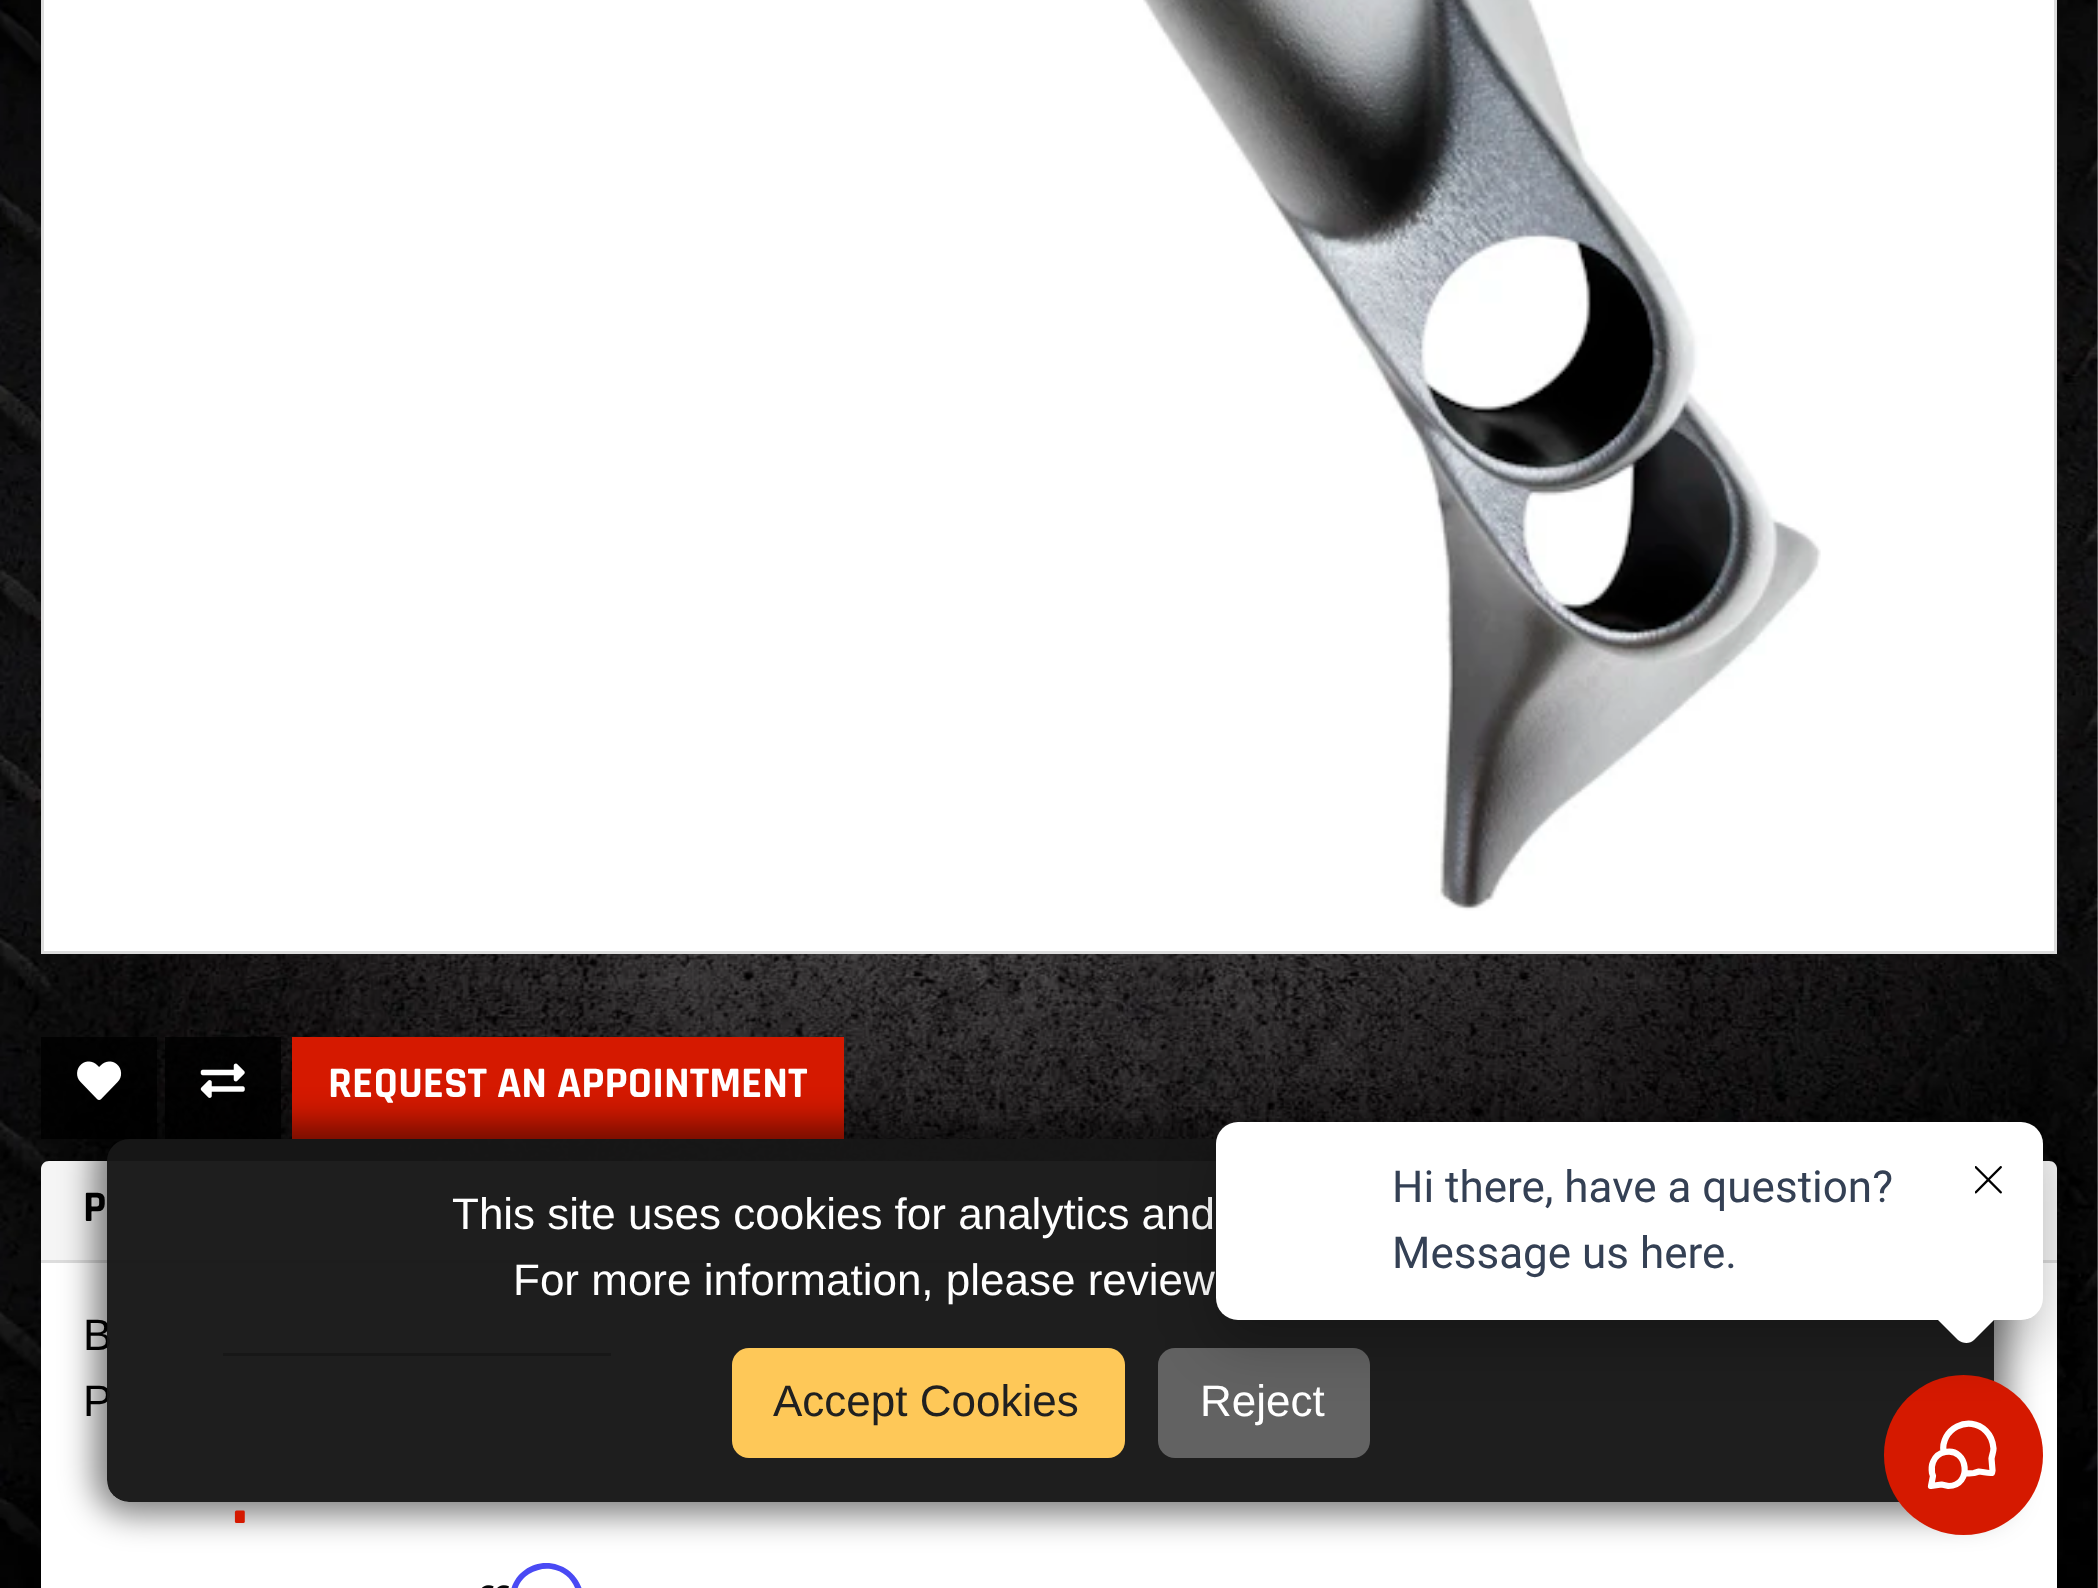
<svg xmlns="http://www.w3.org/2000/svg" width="2098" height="1588">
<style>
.a{font:bold 44px Rajdhani;fill:#fff}
.b{font:bold 44px Rajdhani;fill:#000}
.c{font:44px Arimo;fill:#000}
.d{font:bold 77px Rajdhani;fill:#d51900}
.e{font:44px Arimo;fill:#fff}
.f{font:44px Arimo;fill:#202020}
.g{font:44px Roboto;fill:#344054}
</style>
<defs>
<clipPath id="clip1"><path d="M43 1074h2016v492h-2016zm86 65h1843c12 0 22 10 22 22v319c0 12-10 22-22 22h-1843c-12 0-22-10-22-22v-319c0-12 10-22 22-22z" clip-rule="evenodd"/></clipPath>
</defs>
<rect width="100%" height="100%" fill="#fff"/>
<image href="1.png" x="0" y="0" width="2098" height="1588"/>
<path fill="#fff" stroke="#ddd" stroke-width="3" d="M42.5 -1.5h2013v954H42.5z"/>
<image href="2.png" x="1143" y="0" width="678" height="911"/>
<path fill="#000000cc" d="M41 1037h116v102H41z"/>
<image href="3.png" x="77" y="1061" width="45" height="39"/>
<path fill="#000000cc" d="M165 1037h116v102H165z"/>
<image href="4.png" x="200" y="1063" width="45" height="35"/>
<path fill="#d51900" d="M292 1037h552v102H292z"/>
<rect fill="#fff" x="41" y="1161" width="2016" height="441" rx="14"/>
<path fill="#f5f5f5" d="M49 1161h2000c4.5 0 8 3.5 8 8v93h-2016v-93c0-4.5 3.5-8 8-8z"/>
<path fill="#ddd" d="M41 1260h2016v3H41z"/>
<path fill="#333" d="M223 1353h388v3H223z"/>
<image href="5.png" x="482" y="1585" width="27" height="3"/>
<path fill="#4a4af4" d="M546 1563c-16 0-31 11-35 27h6c2-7 7-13 12-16c7-4 14-6 22-5c22 3 31 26 25 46h6c2-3 2-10 2-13c0-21-16-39-38-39z"/>
<g clip-path="url(#clip1)">
<rect fill="#00000080" filter="blur(16.5px)" x="94" y="1125" width="1914" height="390" rx="36"/>
</g>
<text class="a" x="328" y="1097">REQUEST AN APPOINTMENT</text>
<text class="b" x="83" y="1221">P</text>
<text class="c" x="83" y="1350">B</text>
<text class="c" x="83" y="1416">P</text>
<text class="d" x="232" y="1523">.</text>
<rect fill="#171717f7" x="107" y="1139" width="1887" height="363" rx="22"/>
<text class="e" x="452" y="1229">This site uses cookies for analytics and</text>
<text class="e" x="513" y="1295">For more information, please review</text>
<rect fill="#fec858" x="732" y="1348" width="393" height="110" rx="17"/>
<text class="f" x="773" y="1416">Accept Cookies</text>
<rect fill="#626262" x="1158" y="1348" width="212" height="110" rx="17"/>
<text class="e" x="1200" y="1416">Reject</text>
<rect fill="#d51900" x="1884" y="1375" width="159" height="160" rx="79.5"/>
<path fill="none" stroke="#fff" stroke-width="6.2" stroke-linecap="round" stroke-linejoin="round" d="M1943.5 1452.5c-3.5-23.5 25.5-38.5 42.5-21.5c5 5 7 11 7.5 17.5c0 3.5-1.5 6.5-2 10l1 12l-.5 2.5c-1 1-10.5-1.5-13-1.5l-5 1.5c-3 .5-6.5 .5-9.5 0m-16 13c24 0 20-39-3.5-34c-5.5 1-10 5-12 10c-1.5 3.5-1.5 7.5-1 11l1 3l-2 10l10.5-1.5z"/>
<rect fill="#0000003d" filter="blur(27.5px)" x="1216" y="1144" width="827" height="198" rx="22"/>
<rect fill="#fff" x="1216" y="1122" width="827" height="198" rx="22"/>
<image href="6.png" x="1975" y="1166" width="27" height="28"/>
<text class="g" x="1392" y="1268">Message us here.</text>
<text class="g" x="1392" y="1202">Hi there, have a question?</text>
<path fill="#fff" d="M1974 1278l23 23c5 5 5 11 0 16l-23 23c-4 4-11 4-16 0l-23-23c-4-5-4-11 0-16l23-23c5-4 12-4 16 0z"/>
</svg>
